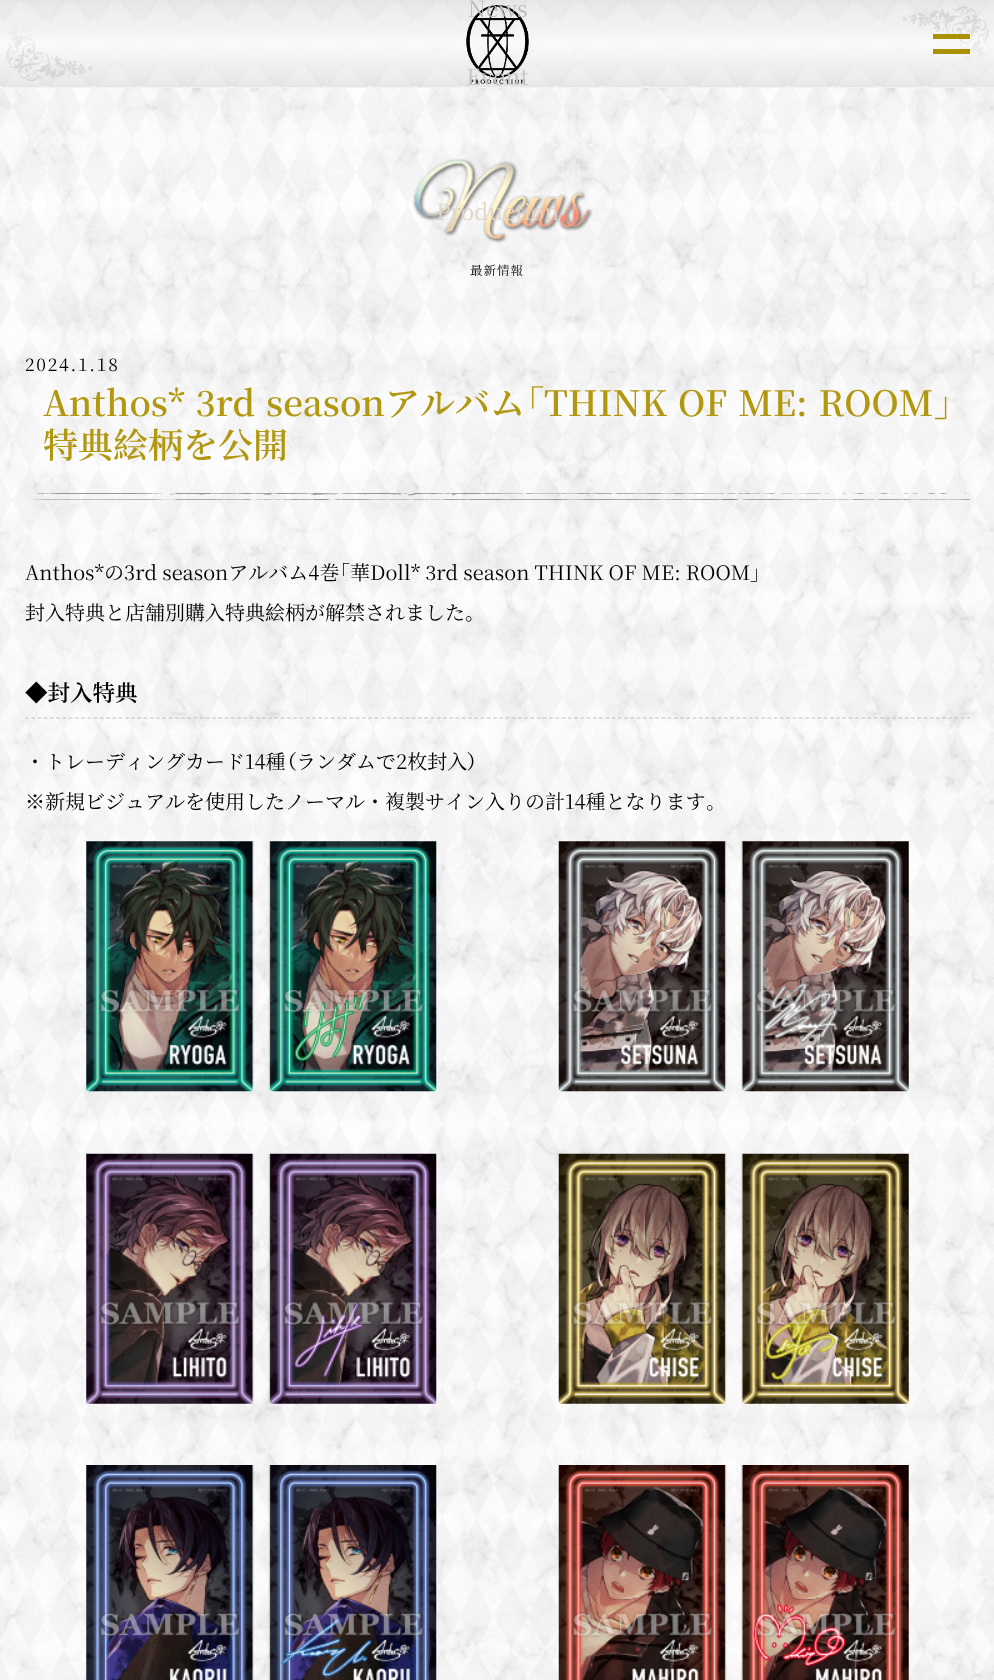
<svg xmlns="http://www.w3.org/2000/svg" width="994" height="1680">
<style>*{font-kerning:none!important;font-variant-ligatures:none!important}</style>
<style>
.a{font:22.5px Noto Serif SC;fill:#bababa}
.b{font:22.5px Noto Serif SC;fill:#c5c5c5}
.c{font:22.5px Noto Serif SC;fill:#e0d4c8}
.d{font:12.5px Noto Serif SC;letter-spacing:1px;fill:#000}
.e{font:17.5px Noto Serif SC;letter-spacing:1.75px;fill:#000}
.f{font:600 35px Noto Serif SC;fill:#b19810}
.g{font:bold 35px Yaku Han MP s;fill:#b19810}
.h{font:20px Noto Serif SC;fill:#000}
.i{font:500 20px Yaku Han MP s;fill:#000}
.j{font:600 22.5px Noto Serif SC;fill:#000}
</style>
<rect width="100%" height="100%" fill="#fff"/>
<image href="1.png" x="0" y="88" width="994" height="1592"/>
<image href="2.png" x="0" y="0" width="994" height="88"/>
<image href="3.png" x="466" y="5" width="63" height="79"/>
<path fill="#ab9100" d="M933 34h37v5H933z"/>
<path fill="#ab9100" d="M933 49h37v5H933z"/>
<image href="4.png" x="412" y="158" width="181" height="85"/>
<image href="5.png" x="33" y="493" width="937" height="7"/>
<path fill="none" stroke="#bfbfbf" stroke-width="1.2" stroke-dasharray="3.75 2.49" d="M25 718h945"/>
<image href="6.png" x="86" y="841" width="351" height="251"/>
<image href="7.png" x="558" y="841" width="351" height="251"/>
<image href="8.png" x="86" y="1153" width="351" height="251"/>
<image href="9.png" x="558" y="1153" width="351" height="251"/>
<image href="10.png" x="86" y="1465" width="351" height="215"/>
<image href="11.png" x="558" y="1465" width="351" height="215"/>
<text class="a" x="468" y="17">News</text>
<text class="b" x="466" y="85">Event</text>
<text class="c" x="436" y="220">Production</text>
<text class="d" x="470" y="275">最新情報</text>
<text class="e" x="25" y="371">2024.1.18</text>
<text class="f" x="43" y="416" word-spacing="2">Anthos* 3rd seasonアルバム</text>
<text class="g" x="525" y="416">「</text>
<text class="f" x="544" y="416" word-spacing="2">THINK OF ME: ROOM</text>
<text class="g" x="934" y="416">」</text>
<text class="f" x="43" y="458">特典絵柄を公開</text>
<text class="h" x="25" y="580">Anthos*の3rd seasonアルバム4巻</text>
<text class="i" x="339" y="580">「</text>
<text class="h" x="350" y="580">華Doll* 3rd season THINK OF ME: ROOM</text>
<text class="i" x="750" y="580">」</text>
<text class="h" x="25" y="620">封入特典と店舗別購入特典絵柄が解禁されました。</text>
<text class="j" x="25" y="701">◆封入特典</text>
<text class="h" x="25" y="769">・トレーディングカード14種</text>
<text class="i" x="286" y="769">（</text>
<text class="h" x="296" y="769">ランダムで2枚封入</text>
<text class="i" x="467" y="769">）</text>
<text class="h" x="25" y="809">※新規ビジュアルを使用したノーマル・複製サイン入りの計14種となります</text>
<text class="h" x="706" y="809">。</text>
</svg>
